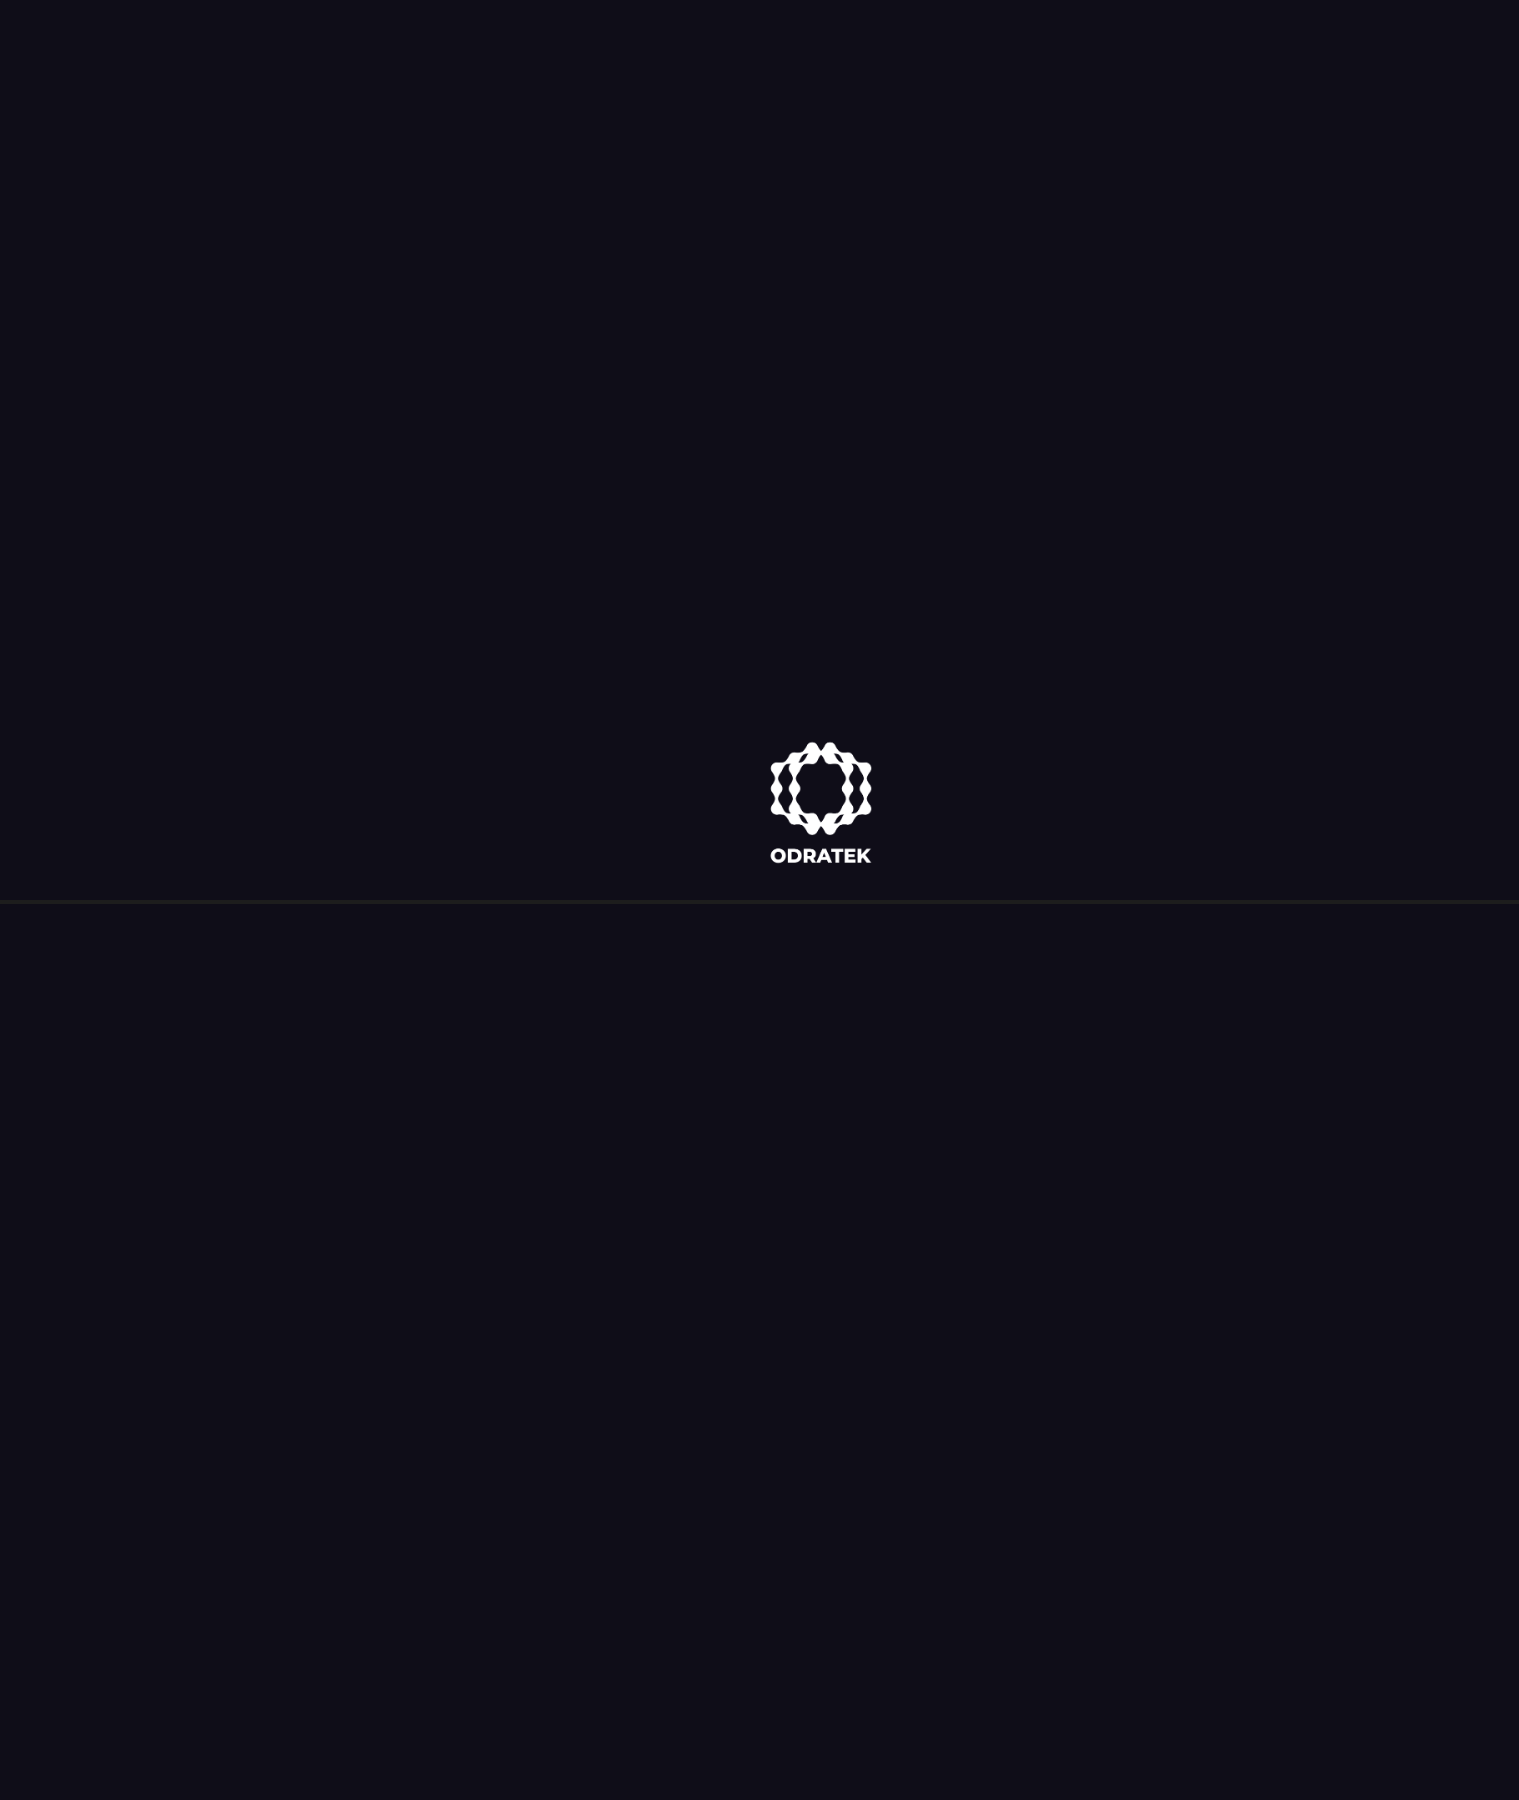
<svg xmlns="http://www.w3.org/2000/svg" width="1519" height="1800">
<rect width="100%" height="100%" fill="#0f0d18"/>
<image href="1.png" x="770" y="741" width="102" height="123"/>
<path fill="#1d1d1d" d="M0 900h1519v4H0z"/>
</svg>
